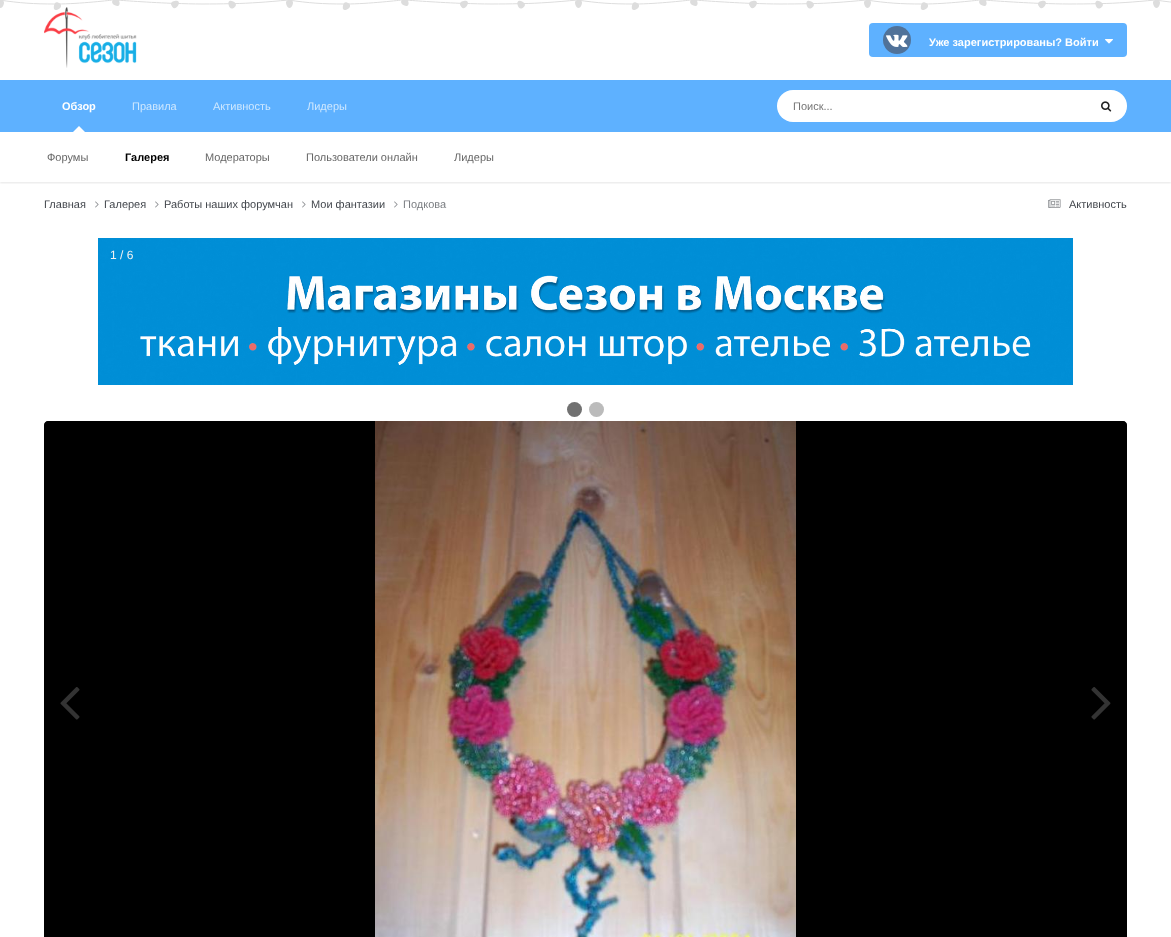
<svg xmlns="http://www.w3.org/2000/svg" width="1171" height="937">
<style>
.a{font:bold 11px Liberation Sans;fill:#fff}
.b{font:11px Liberation Sans;fill:#666}
.c{font:bold 11px Liberation Sans;fill:#000}
.d{font:11px Liberation Sans;fill:#cfe8ff}
.e{font:11px Liberation Sans;fill:#757575}
.f{font:11px Liberation Sans;fill:#42464c}
.g{font:11px Liberation Sans;fill:#7b7e82}
.h{font:12px Liberation Sans;fill:#f2f2f2}
</style>
<defs>
<clipPath id="clip1"><path d="M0 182h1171v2H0z"/></clipPath>
</defs>
<rect width="100%" height="100%" fill="#fff"/>
<image href="11.png" x="44" y="7" width="93" height="61"/>
<image href="1.png" x="0" y="0" width="55" height="8"/>
<image href="2.png" x="53" y="0" width="60" height="10"/>
<image href="3.png" x="112" y="0" width="60" height="6"/>
<image href="4.png" x="171" y="0" width="58" height="9"/>
<image href="5.png" x="228" y="0" width="60" height="9"/>
<image href="6.png" x="286" y="0" width="58" height="8"/>
<image href="7.png" x="342" y="0" width="60" height="10"/>
<image href="3.png" x="401" y="0" width="60" height="6"/>
<image href="8.png" x="460" y="0" width="58" height="9"/>
<image href="9.png" x="517" y="0" width="60" height="9"/>
<image href="6.png" x="575" y="0" width="58" height="8"/>
<image href="7.png" x="631" y="0" width="60" height="10"/>
<image href="3.png" x="690" y="0" width="60" height="6"/>
<image href="4.png" x="749" y="0" width="58" height="9"/>
<image href="5.png" x="806" y="0" width="60" height="9"/>
<image href="6.png" x="864" y="0" width="58" height="8"/>
<image href="7.png" x="920" y="0" width="60" height="10"/>
<image href="3.png" x="979" y="0" width="60" height="6"/>
<image href="8.png" x="1038" y="0" width="58" height="9"/>
<image href="9.png" x="1095" y="0" width="60" height="9"/>
<image href="10.png" x="1153" y="0" width="18" height="8"/>
<rect fill="#5eb1ff" x="869" y="23" width="258" height="34" rx="4"/>
<circle fill="#507299" cx="897" cy="40" r="14"/>
<image href="12.png" x="886" y="34" width="22" height="13"/>
<image href="13.png" x="1105" y="39" width="8" height="5"/>
<path fill="#5eb1ff" d="M0 80h1171v52H0z"/>
<g clip-path="url(#clip1)">
<path fill="#0000001a" filter="blur(1px)" d="M0 133h1171v50H0z"/>
</g>
<path fill="#fff" d="M85 132h-12l6-6z"/>
<rect fill="#fff" x="777" y="90" width="350" height="32" rx="16"/>
<image href="14.png" x="1101" y="101" width="11" height="11"/>
<image href="15.png" x="95" y="201" width="4" height="7"/>
<image href="15.png" x="155" y="201" width="4" height="7"/>
<image href="15.png" x="302" y="201" width="4" height="7"/>
<image href="15.png" x="394" y="201" width="4" height="7"/>
<image href="16.png" x="1048" y="199" width="13" height="9"/>
<image href="17.png" x="98" y="238" width="975" height="147"/>
<circle fill="#717171" cx="574.5" cy="409.5" r="7.5"/>
<circle fill="#bbb" cx="596.5" cy="409.5" r="7.5"/>
<path fill="#000" d="M48 421h1075c2 0 4 2 4 4v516h-1083v-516c0-2 2-4 4-4z"/>
<path fill="#00000099" d="M48 421h1075c2 0 4 2 4 4v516h-1083v-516c0-2 2-4 4-4z"/>
<image href="18.png" x="375" y="421" width="421" height="516"/>
<image href="19.png" x="60" y="687" width="20" height="33"/>
<image href="20.png" x="1091" y="687" width="20" height="33"/>
<text class="a" x="929" y="46">Уже зарегистрированы? Войти</text>
<text class="a" x="62" y="110">Обзор</text>
<text class="b" x="47" y="161">Форумы</text>
<text class="c" x="125" y="161">Галерея</text>
<text class="b" x="205" y="161">Модераторы</text>
<text class="b" x="306" y="161">Пользователи онлайн</text>
<text class="b" x="454" y="161">Лидеры</text>
<text class="d" x="132" y="110">Правила</text>
<text class="d" x="213" y="110">Активность</text>
<text class="d" x="307" y="110">Лидеры</text>
<text class="e" x="793" y="110">Поиск...</text>
<text class="f" x="44" y="208">Главная</text>
<text class="f" x="104" y="208">Галерея</text>
<text class="f" x="164" y="208">Работы наших форумчан</text>
<text class="f" x="311" y="208">Мои фантазии</text>
<text class="g" x="403" y="208">Подкова</text>
<text class="f" x="1069" y="208">Активность</text>
<text class="h" x="110" y="259">1 / 6</text>
</svg>
